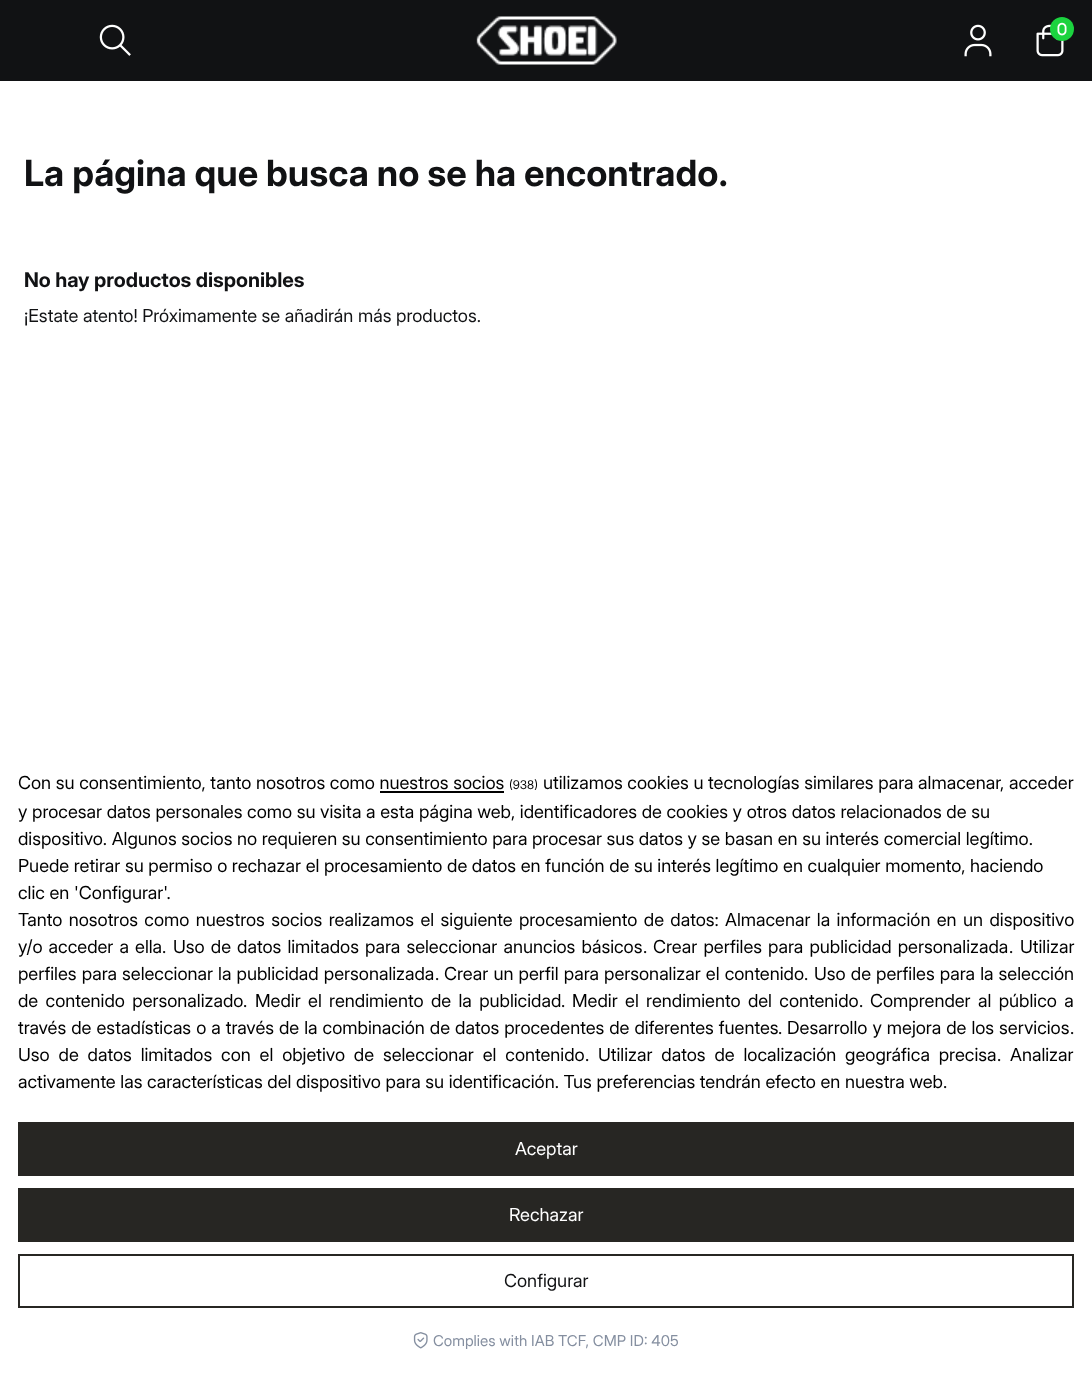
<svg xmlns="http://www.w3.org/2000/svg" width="1092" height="1388">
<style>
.a{font:bold 36px Inter;fill:#111214}
.b{font:bold 20.25px Inter;fill:#111214}
.c{font:18px Inter;fill:#111214}
.d{font:18px Inter;fill:#000}
.e{font:12px Inter;fill:#000}
.f{font:18px Inter;fill:#fff}
.g{font:15px Inter;fill:#858fa0}
</style>
<rect width="100%" height="100%" fill="#fff"/>
<path fill="#111214" d="M0 0h1092v81H0z"/>
<image href="1.png" x="99" y="24" width="32" height="32"/>
<image href="2.png" x="476" y="16" width="141" height="49"/>
<image href="3.png" x="964" y="24" width="28" height="33"/>
<image href="4.png" x="1036" y="24" width="28" height="33"/>
<circle fill="#1bd33f" cx="1062" cy="29" r="12"/>
<image href="5.png" x="1057" y="22" width="10" height="14"/>
<path fill="#000" d="M380 791h124v2H380z"/>
<path fill="#272623" d="M18 1122h1056v54H18z"/>
<path fill="#272623" d="M18 1188h1056v54H18z"/>
<path fill="none" stroke="#272623" stroke-width="2" d="M19 1255h1054v52H19z"/>
<image href="6.png" x="413" y="1332" width="15" height="17"/>
<text class="a" x="24" y="186">La página que busca no se ha encontrado.</text>
<text class="b" x="24" y="287">No hay productos disponibles</text>
<text class="c" x="24" y="322">¡Estate atento! Próximamente se añadirán más productos.</text>
<text class="d" x="18" y="789">Con su consentimiento, tanto nosotros como nuestros socios</text>
<text class="e" x="509" y="789">(938)</text>
<text class="d" x="543" y="789">utilizamos cookies u tecnologías similares para almacenar, acceder</text>
<text class="d" x="18" y="818">y procesar datos personales como su visita a esta página web, identificadores de cookies y otros datos relacionados de su</text>
<text class="d" x="18" y="845">dispositivo. Algunos socios no requieren su consentimiento para procesar sus datos y se basan en su interés comercial legítimo.</text>
<text class="d" x="18" y="872">Puede retirar su permiso o rechazar el procesamiento de datos en función de su interés legítimo en cualquier momento, haciendo</text>
<text class="d" x="18" y="899">clic en 'Configurar'.</text>
<text class="d" x="18" y="926" word-spacing="1.75">Tanto nosotros como nuestros socios realizamos el siguiente procesamiento de datos:</text>
<text class="d" x="725" y="926" word-spacing="1.75">Almacenar la información en un dispositivo</text>
<text class="d" x="18" y="953" word-spacing="1.5">y/o acceder a ella</text>
<text class="d" x="162" y="953">.</text>
<text class="d" x="173" y="953" word-spacing="1.5">Uso de datos limitados para seleccionar anuncios básicos</text>
<text class="d" x="643" y="953">.</text>
<text class="d" x="653" y="953" word-spacing="1.5">Crear perfiles para publicidad personalizada</text>
<text class="d" x="1009" y="953">.</text>
<text class="d" x="1020" y="953">Utilizar</text>
<text class="d" x="18" y="980" word-spacing="0.5">perfiles para seleccionar la publicidad personalizada</text>
<text class="d" x="435" y="980">.</text>
<text class="d" x="444" y="980" word-spacing="0.5">Crear un perfil para personalizar el contenido</text>
<text class="d" x="804" y="980">.</text>
<text class="d" x="814" y="980" word-spacing="0.5">Uso de perfiles para la selección</text>
<text class="d" x="18" y="1007" word-spacing="2.75">de contenido personalizado</text>
<text class="d" x="243" y="1007">.</text>
<text class="d" x="255" y="1007" word-spacing="2.75">Medir el rendimiento de la publicidad</text>
<text class="d" x="561" y="1007">.</text>
<text class="d" x="572" y="1007" word-spacing="2.75">Medir el rendimiento del contenido</text>
<text class="d" x="859" y="1007">.</text>
<text class="d" x="870" y="1007" word-spacing="2.75">Comprender al público a</text>
<text class="d" x="18" y="1034" word-spacing="0.4">través de estadísticas o a través de la combinación de datos procedentes de diferentes fuentes</text>
<text class="d" x="778" y="1034">.</text>
<text class="d" x="787" y="1034" word-spacing="0.4">Desarrollo y mejora de los servicios</text>
<text class="d" x="1070" y="1034">.</text>
<text class="d" x="18" y="1061" word-spacing="4.25">Uso de datos limitados con el objetivo de seleccionar el contenido</text>
<text class="d" x="585" y="1061">.</text>
<text class="d" x="598" y="1061" word-spacing="4.25">Utilizar datos de localización geográfica precisa</text>
<text class="d" x="997" y="1061">.</text>
<text class="d" x="1010" y="1061">Analizar</text>
<text class="d" x="18" y="1088">activamente las características del dispositivo para su identificación. Tus preferencias tendrán efecto en nuestra web.</text>
<text class="f" x="515" y="1155">Aceptar</text>
<text class="f" x="509" y="1221">Rechazar</text>
<text class="c" x="504" y="1287">Configurar</text>
<text class="g" x="433" y="1346">Complies with IAB TCF, CMP ID: 405</text>
</svg>
